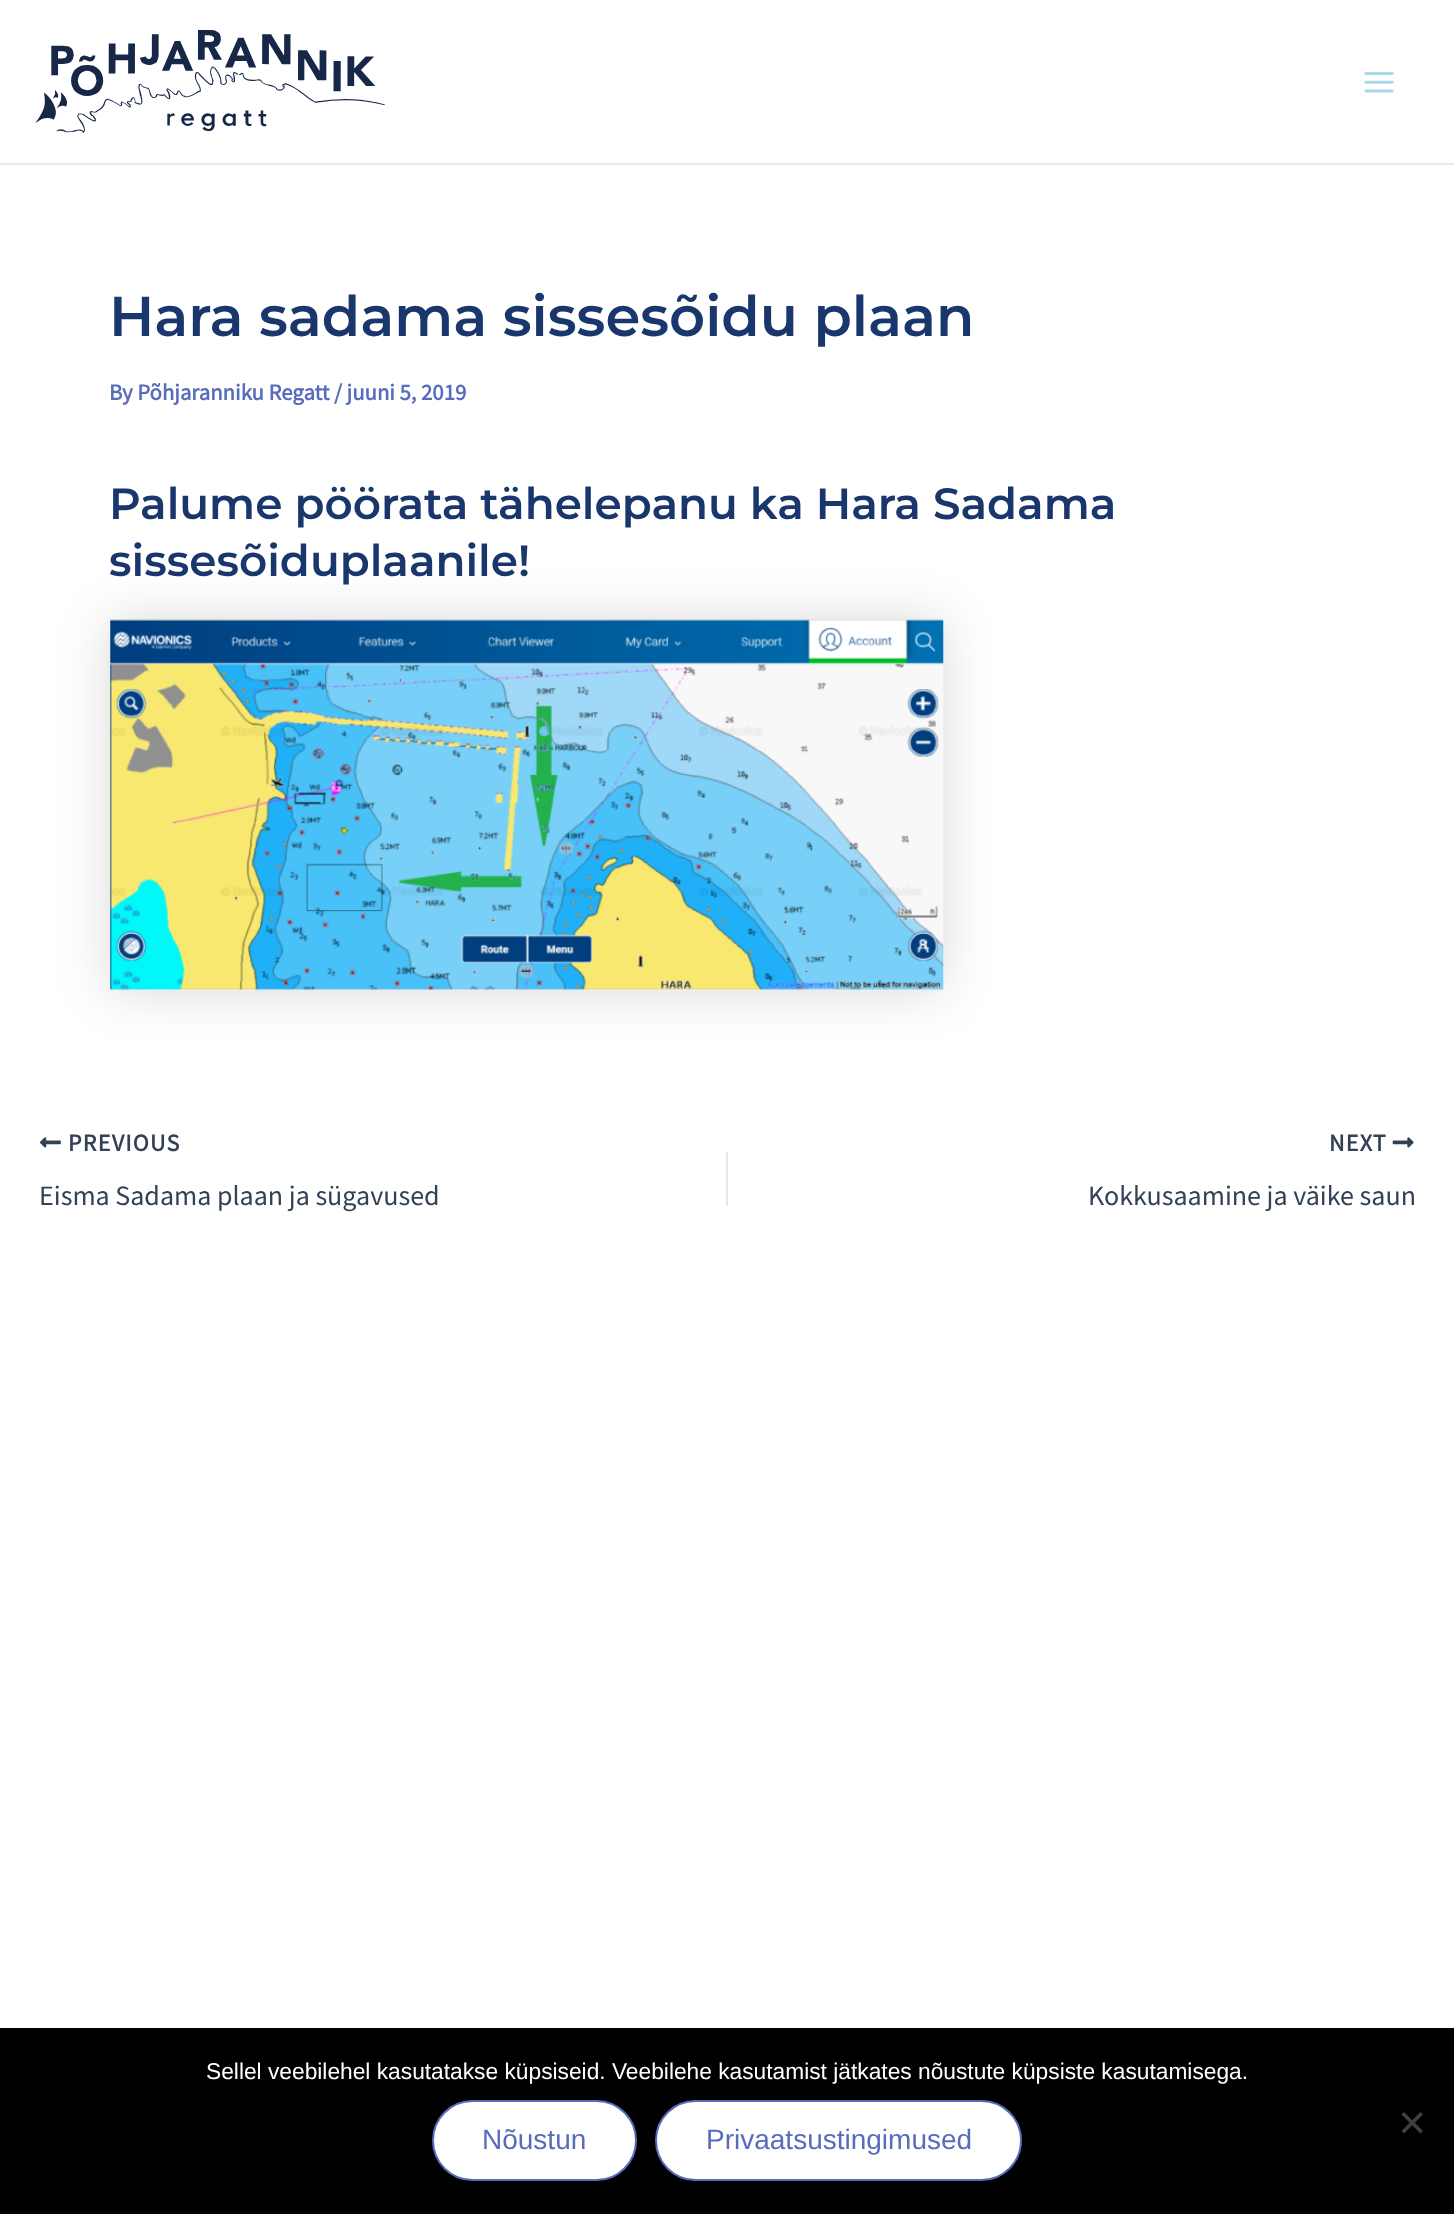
<svg xmlns="http://www.w3.org/2000/svg" width="1454" height="2214">
<style>
.a{font:600 56px Montserrat;fill:#19376d}
.b{font:bold 22.75px Source Sans Pro;fill:#576cbc}
.c{font:600 43.75px Montserrat;fill:#19376d}
.d{font:bold 24px Source Sans Pro;letter-spacing:1.25px;fill:#334155}
.e{font:28px Source Sans Pro;fill:#334155}
.f{font:22.75px Liberation Sans;fill:#fff}
.g{font:28px Liberation Sans;fill:#576cbc}
</style>
<rect width="100%" height="100%" fill="#fff"/>
<path fill="#eaeaea" d="M0 163h1454v2H0z"/>
<image href="1.png" x="35" y="30" width="350" height="103"/>
<image href="2.png" x="1364" y="72" width="30" height="21"/>
<path fill="#00000026" filter="blur(26px)" d="M110 620h833v371H110z"/>
<image href="3.png" x="110" y="619" width="834" height="372"/>
<image href="4.png" x="40" y="1137" width="21" height="11"/>
<path fill="#e1e8ed" d="M726 1152h2v54H726z"/>
<image href="5.png" x="1392" y="1137" width="22" height="11"/>
<path fill="#000" d="M0 2028h1454v186H0z"/>
<path fill="#404040" d="M1420.5 2112l2.5 2.5l-19 19l-2.5-2.5z"/>
<path fill="#404040" d="M1401.5 2114.5l2.5-2.5l19 19l-2.5 2.5z"/>
<rect fill="#fff" stroke="#576cbc" stroke-width="2" x="433" y="2101" width="203" height="79" rx="39.5"/>
<rect fill="#fff" stroke="#576cbc" stroke-width="2" x="656" y="2101" width="365" height="79" rx="39.5"/>
<text class="a" x="109" y="336">Hara sadama sissesõidu plaan</text>
<text class="b" x="109" y="400">By Põhjaranniku Regatt / juuni 5, 2019</text>
<text class="c" x="109" y="519">Palume pöörata tähelepanu ka Hara Sadama</text>
<text class="c" x="109" y="576">sissesõiduplaanile!</text>
<text class="d" x="68" y="1151">PREVIOUS</text>
<text class="e" x="39" y="1205">Eisma Sadama plaan ja sügavused</text>
<text class="d" x="1329" y="1151">NEXT</text>
<text class="e" x="1088" y="1205">Kokkusaamine ja väike saun</text>
<text class="f" x="206" y="2079">Sellel veebilehel kasutatakse küpsiseid. Veebilehe kasutamist jätkates nõustute küpsiste kasutamisega.</text>
<text class="g" x="482" y="2149">Nõustun</text>
<text class="g" x="706" y="2149">Privaatsustingimused</text>
</svg>
